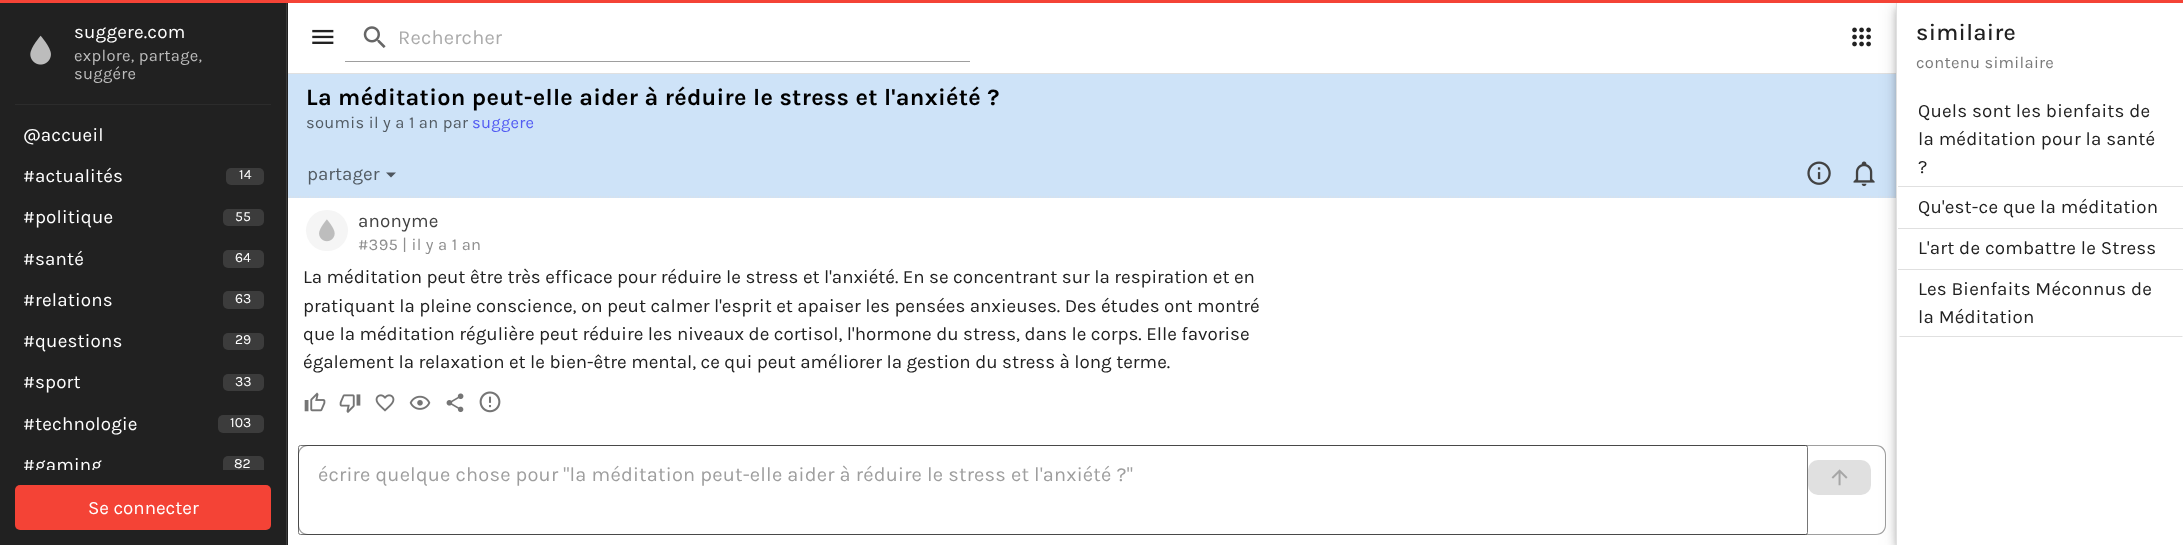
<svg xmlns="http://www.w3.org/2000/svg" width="2183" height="545">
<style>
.a{font:18.75px Karla;letter-spacing:0.2px;fill:#fff}
.b{font:16.5px Karla;letter-spacing:0.3px;fill:#bcbcbc}
.c{font:14px Karla;fill:#fff}
.d{font:18.75px Karla;fill:#fff}
.e{font:20px Karla;letter-spacing:0.2px;fill:#ababab}
.f{font:bold 23.45px Karla;letter-spacing:0.3px;fill:#000}
.g{font:16.5px Karla;letter-spacing:0.3px;fill:#525b63}
.h{font:16.5px Karla;letter-spacing:0.3px;fill:#525bf2}
.i{font:18.75px Karla;fill:#525b63}
.j{font:18.75px Karla;letter-spacing:0.2px;fill:#424242}
.k{font:16.5px Karla;letter-spacing:0.3px;fill:#8e8e8e}
.l{font:18.75px Karla;fill:#212121}
.m{font:20px Karla;letter-spacing:0.2px;fill:#9e9e9e}
.n{font:18.75px Karla;letter-spacing:0.2px;fill:#212121}
.o{font:16.5px Karla;letter-spacing:0.3px;fill:#7a7a7a}
.p{font:500 23.45px Karla;letter-spacing:0.3px;fill:#212121}
</style>
<defs>
<clipPath id="clip1"><path d="M0 89h286v381H0z"/></clipPath>
<clipPath id="clip2"><path d="M23 451h200v19H23z"/></clipPath>
<clipPath id="clip3"><rect x="1898" y="3" width="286" height="335" rx="5"/></clipPath>
</defs>
<rect width="100%" height="100%" fill="#fff"/>
<path fill="#cee3f8" d="M288 74h1608v124H288z"/>
<path fill="none" stroke="#e0e0e0" stroke-width="1.2" stroke-dasharray="1.25 1.25" d="M287.5 197h1608.5"/>
<path fill="#212121" d="M0 3h288v542H0z"/>
<path fill="#3c3c3c" d="M286 3h1v542H286z"/>
<image href="1.png" x="30" y="35" width="21" height="30"/>
<path fill="#2c2c2c" d="M15 104h256v1H15z"/>
<rect fill="#ffffff1f" x="226" y="168" width="38" height="17" rx="5"/>
<rect fill="#ffffff1f" x="223" y="209" width="41" height="17" rx="5"/>
<rect fill="#ffffff1f" x="223" y="250" width="41" height="18" rx="5"/>
<rect fill="#ffffff1f" x="223" y="291" width="41" height="18" rx="5"/>
<rect fill="#ffffff1f" x="223" y="333" width="41" height="17" rx="5"/>
<rect fill="#ffffff1f" x="223" y="374" width="41" height="17" rx="5"/>
<rect fill="#ffffff1f" x="218" y="415" width="46" height="18" rx="5"/>
<g clip-path="url(#clip1)">
<rect fill="#ffffff1f" x="223" y="456" width="41" height="18" rx="5"/>
</g>
<rect fill="#f44336" x="15" y="485" width="256" height="45" rx="5"/>
<path fill="#e0e0e0" d="M288 73h1608v1H288z"/>
<image href="2.png" x="312" y="29" width="22" height="15"/>
<image href="3.png" x="363" y="26" width="23" height="22"/>
<path fill="#9e9e9e" d="M345 61h625v1H345z"/>
<image href="4.png" x="1852" y="27" width="19" height="20"/>
<path fill="#00000033" filter="blur(3px)" d="M1898 8h285v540H1898z"/>
<path fill="#4e565e" d="M386 172.5l5 5l5-5z"/>
<image href="5.png" x="1807" y="161" width="24" height="24"/>
<image href="6.png" x="1853" y="161" width="22" height="26"/>
<rect fill="#f5f5f5" x="306" y="210" width="42" height="41" rx="20.5"/>
<image href="7.png" x="319" y="219" width="16" height="23"/>
<image href="8.png" x="304" y="392" width="22" height="20"/>
<circle fill="none" stroke="#fff" stroke-width="3" cx="315.5" cy="402.5" r="16"/>
<image href="9.png" x="339" y="394" width="22" height="19"/>
<image href="10.png" x="375" y="394" width="20" height="18"/>
<image href="11.png" x="409" y="395" width="22" height="15"/>
<image href="12.png" x="446" y="393" width="18" height="20"/>
<image href="13.png" x="479" y="391" width="22" height="22"/>
<rect fill="none" stroke="#767676" x="298.5" y="445.5" width="1509" height="89" rx="2"/>
<rect fill="#e0e0e0" x="1808" y="460" width="63" height="35" rx="10"/>
<image href="14.png" x="1831" y="469" width="17" height="17"/>
<text class="a" x="74" y="38">suggere.com</text>
<text class="b" x="74" y="61">explore, partage,</text>
<text class="b" x="74" y="79">suggére</text>
<text class="a" x="23" y="141">@accueil</text>
<text class="a" x="23" y="182">#actualités</text>
<text class="c" x="239" y="179">14</text>
<text class="a" x="23" y="223">#politique</text>
<text class="c" x="235" y="221">55</text>
<text class="a" x="23" y="265">#santé</text>
<text class="c" x="235" y="262">64</text>
<text class="a" x="23" y="306">#relations</text>
<text class="c" x="235" y="303">63</text>
<text class="a" x="23" y="347">#questions</text>
<text class="c" x="235" y="344">29</text>
<text class="a" x="23" y="388">#sport</text>
<text class="c" x="235" y="386">33</text>
<text class="a" x="23" y="430">#technologie</text>
<text class="c" x="230" y="427">103</text>
<g clip-path="url(#clip2)">
<text class="a" x="23" y="471">#gaming</text>
</g>
<text class="c" x="234" y="468">82</text>
<text class="d" x="88" y="514">Se connecter</text>
<text class="e" x="398" y="44">Rechercher</text>
<text class="f" x="306" y="105">La méditation peut-elle aider à réduire le stress et l'anxiété ?</text>
<text class="g" x="306" y="128">soumis il y a 1 an par</text>
<text class="h" x="472" y="128">suggere</text>
<text class="i" x="307" y="180">partager</text>
<text class="j" x="358" y="227">anonyme</text>
<text class="k" x="358" y="250">#395 | il y a 1 an</text>
<text class="l" x="303" y="283">La méditation peut être très efficace pour réduire le stress et l'anxiété. En se concentrant sur la respiration et en</text>
<text class="l" x="303" y="312">pratiquant la pleine conscience, on peut calmer l'esprit et apaiser les pensées anxieuses. Des études ont montré</text>
<text class="l" x="303" y="340">que la méditation régulière peut réduire les niveaux de cortisol, l'hormone du stress, dans le corps. Elle favorise</text>
<text class="l" x="303" y="368">également la relaxation et le bien-être mental, ce qui peut améliorer la gestion du stress à long terme.</text>
<text class="m" x="318" y="481">écrire quelque chose pour "la méditation peut-elle aider à réduire le stress et l'anxiété ?"</text>
<path fill="#00000061" fill-rule="evenodd" d="M330 445h1546c6 0 10 4 10 10v70c0 6-4 10-10 10h-1546zm0 1h1546c5 0 9 4 9 9v70c0 5-4 9-9 9h-1546z"/>
<path fill="#00000024" filter="blur(5px)" d="M1896 9h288v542H1896z"/>
<path fill="#0000001f" filter="blur(9px)" d="M1896 4h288v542H1896z"/>
<path fill="#f44336" d="M0 0h2183v3H0z"/>
<path fill="#fff" d="M1897 3h286v542H1897z"/>
<text class="n" x="1918" y="323">la Méditation</text>
<text class="n" x="1918" y="295">Les Bienfaits Méconnus de</text>
<g clip-path="url(#clip3)">
<path fill="#e0e0e0" d="M1898 336h285v1H1898z"/>
</g>
<text class="n" x="1918" y="254">L'art de combattre le Stress</text>
<path fill="#e0e0e0" d="M1898 269h285v1H1898z"/>
<text class="n" x="1918" y="213">Qu'est-ce que la méditation</text>
<path fill="#e0e0e0" d="M1898 228h285v1H1898z"/>
<text class="n" x="1918" y="173">?</text>
<text class="n" x="1918" y="145">la méditation pour la santé</text>
<text class="n" x="1918" y="117">Quels sont les bienfaits de</text>
<path fill="#e0e0e0" d="M1898 186h285v1H1898z"/>
<text class="o" x="1916" y="68">contenu similaire</text>
<text class="p" x="1916" y="40">similaire</text>
<path fill="#e0e0e0" d="M1896 3h1v542H1896z"/>
<path fill="#00000061" fill-rule="evenodd" d="M308 445h22v90h-22c-6 0-10-4-10-10v-70c0-6 4-10 10-10zm0 1h22v88h-22c-5 0-9-4-9-9v-70c0-5 4-9 9-9z"/>
</svg>
